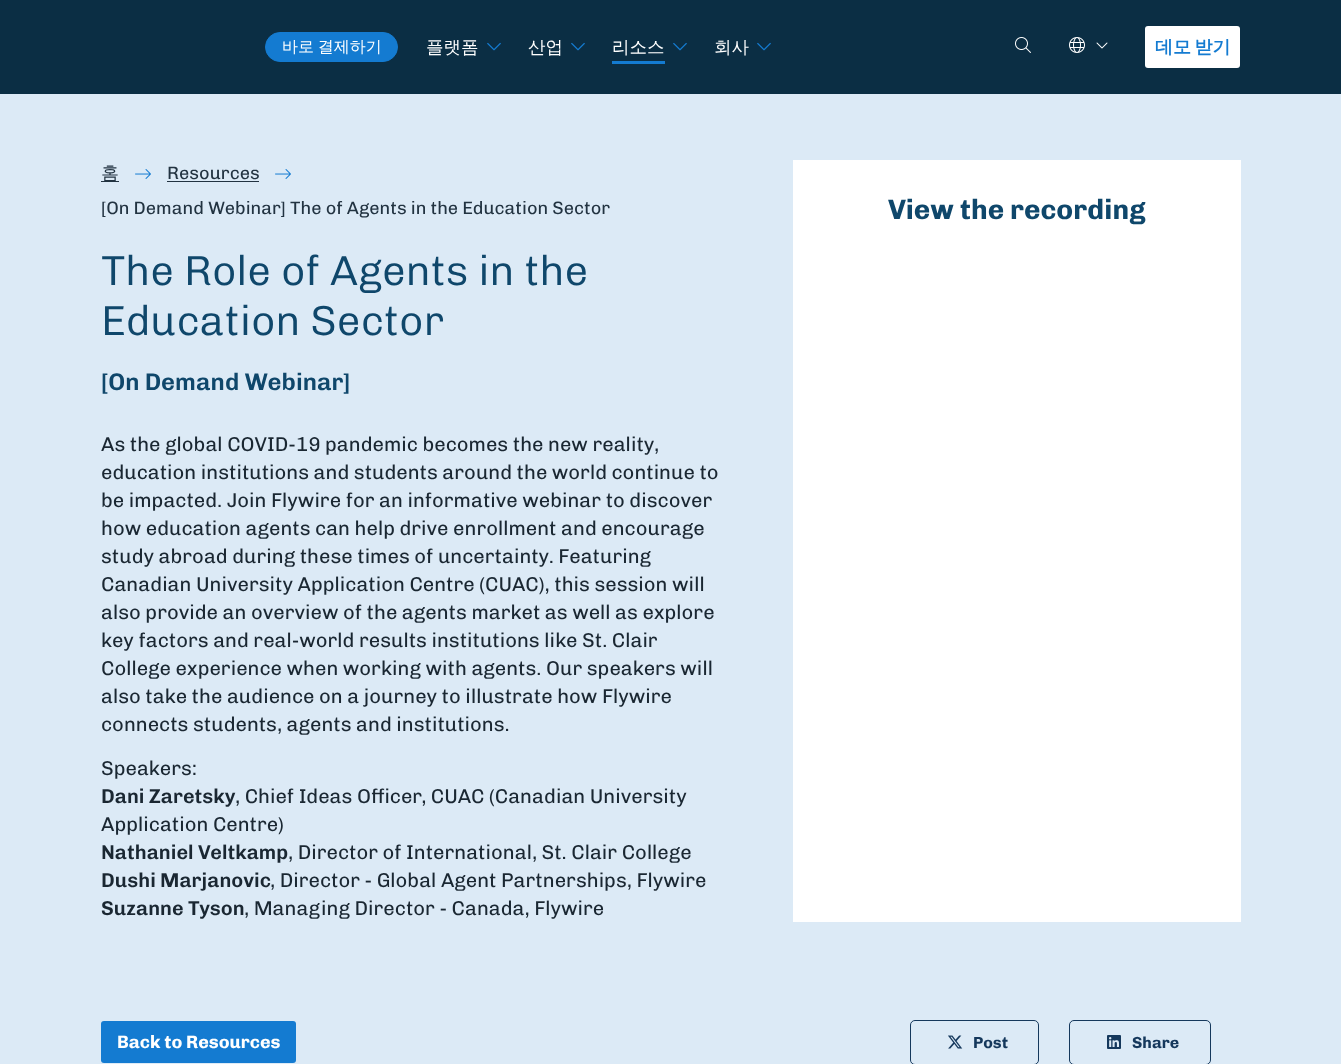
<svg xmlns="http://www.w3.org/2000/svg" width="1341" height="1064">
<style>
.a{font:500 16px WenQuanYi Zen Hei;fill:#fff}
.b{font:500 17.5px WenQuanYi Zen Hei;fill:#fff}
.c{font:bold 18px WenQuanYi Zen Hei;fill:#147bd1}
.d{font:500 18px WenQuanYi Zen Hei;fill:#223341}
.e{font:18px Chivo;fill:#223341}
.f{font:300 42px Chivo;fill:#0f476b}
.g{font:600 24px Chivo;fill:#0f476b}
.h{font:20px Chivo;fill:#1a2732}
.i{font:600 20px Chivo;fill:#1a2732}
.j{font:bold 28px Chivo;fill:#0f476b}
.k{font:bold 18px Chivo;fill:#fff}
.l{font:bold 16px Chivo;fill:#15385c}
</style>
<rect width="100%" height="100%" fill="#dceaf6"/>
<path fill="#0b2e44" d="M0 0h1341v94H0z"/>
<rect fill="#147bd1" stroke="#147bd1" x="265.5" y="32.5" width="132" height="29" rx="14.5"/>
<image href="1.png" x="487" y="42" width="14" height="9"/>
<image href="1.png" x="571" y="42" width="14" height="9"/>
<path fill="#147bd1" d="M612 61h53v3H612z"/>
<image href="1.png" x="673" y="42" width="14" height="9"/>
<image href="1.png" x="757" y="42" width="14" height="9"/>
<image href="2.png" x="1015" y="37" width="16" height="16"/>
<image href="3.png" x="1069" y="37" width="16" height="16"/>
<image href="4.png" x="1096" y="42" width="12" height="7"/>
<rect fill="#fff" x="1145" y="26" width="95" height="42" rx="3"/>
<path fill="#223341" d="M101 181h18v1H101z"/>
<image href="5.png" x="135" y="169" width="16" height="10"/>
<path fill="#223341" d="M167 181h92v1H167z"/>
<image href="5.png" x="275" y="169" width="16" height="10"/>
<path fill="#fff" d="M793 160h448v762H793z"/>
<rect fill="#147bd1" x="101" y="1021" width="195" height="42" rx="3"/>
<rect fill="none" stroke="#15385c" x="910.5" y="1020.5" width="128" height="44" rx="4.5"/>
<image href="6.png" x="948" y="1035" width="15" height="14"/>
<rect fill="none" stroke="#15385c" x="1069.5" y="1020.5" width="141" height="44" rx="4.5"/>
<image href="7.png" x="1107" y="1035" width="14" height="14"/>
<text class="a" x="282" y="52" word-spacing="-1">바로 결제하기</text>
<text class="b" x="426" y="53">플랫폼</text>
<text class="b" x="528" y="53">산업</text>
<text class="b" x="612" y="53">리소스</text>
<text class="b" x="714" y="53">회사</text>
<text class="c" x="1155" y="53" word-spacing="-2">데모 받기</text>
<text class="d" x="101" y="179">홈</text>
<text class="e" x="167" y="179">Resources</text>
<text class="e" x="101" y="214">[On Demand Webinar] The of Agents in the Education Sector</text>
<text class="f" x="101" y="285">The Role of Agents in the</text>
<text class="f" x="101" y="335">Education Sector</text>
<text class="g" x="101" y="390">[On Demand Webinar]</text>
<text class="h" x="101" y="451">As the global COVID-19 pandemic becomes the new reality,</text>
<text class="h" x="101" y="479">education institutions and students around the world continue to</text>
<text class="h" x="101" y="507">be impacted. Join Flywire for an informative webinar to discover</text>
<text class="h" x="101" y="535">how education agents can help drive enrollment and encourage</text>
<text class="h" x="101" y="563">study abroad during these times of uncertainty. Featuring</text>
<text class="h" x="101" y="591">Canadian University Application Centre (CUAC), this session will</text>
<text class="h" x="101" y="619">also provide an overview of the agents market as well as explore</text>
<text class="h" x="101" y="647">key factors and real-world results institutions like St. Clair</text>
<text class="h" x="101" y="675">College experience when working with agents. Our speakers will</text>
<text class="h" x="101" y="703">also take the audience on a journey to illustrate how Flywire</text>
<text class="h" x="101" y="731">connects students, agents and institutions.</text>
<text class="h" x="101" y="775">Speakers:</text>
<text class="i" x="101" y="803">Dani Zaretsky</text>
<text class="h" x="235" y="803">, Chief Ideas Officer, CUAC (Canadian University</text>
<text class="h" x="101" y="831">Application Centre)</text>
<text class="i" x="101" y="859">Nathaniel Veltkamp</text>
<text class="h" x="288" y="859">, Director of International, St. Clair College</text>
<text class="i" x="101" y="887">Dushi Marjanovic</text>
<text class="h" x="270" y="887">, Director - Global Agent Partnerships, Flywire</text>
<text class="i" x="101" y="915">Suzanne Tyson</text>
<text class="h" x="244" y="915">, Managing Director - Canada, Flywire</text>
<text class="j" x="888" y="219">View the recording</text>
<text class="k" x="117" y="1048">Back to Resources</text>
<text class="l" x="973" y="1048">Post</text>
<text class="l" x="1132" y="1048">Share</text>
</svg>
